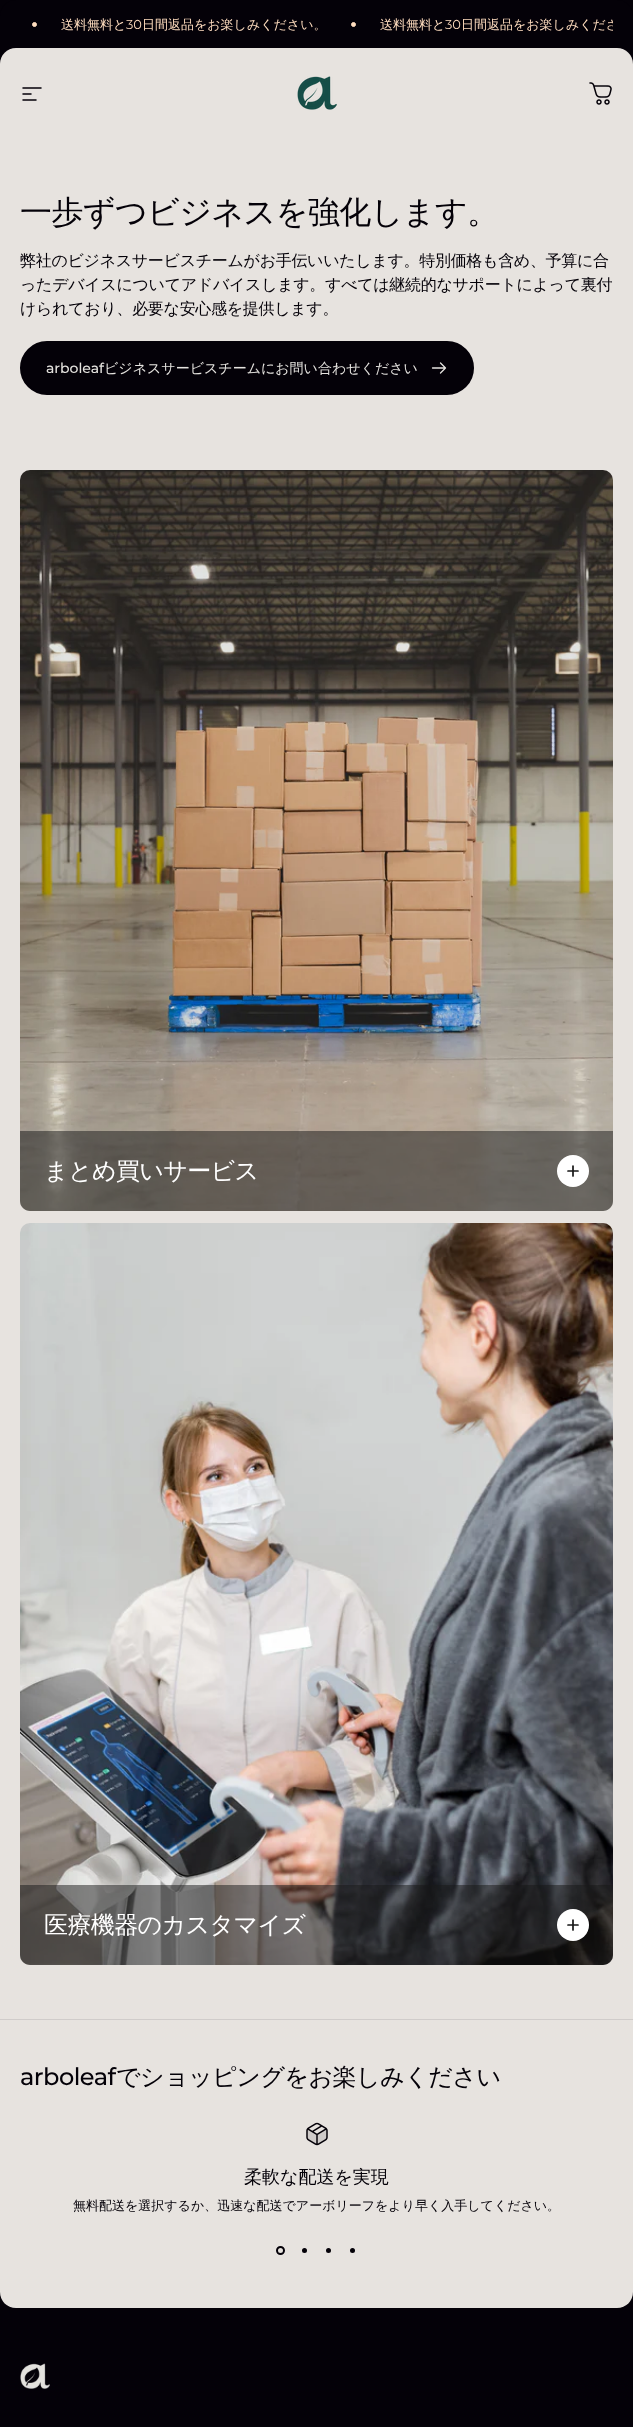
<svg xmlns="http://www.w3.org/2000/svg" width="633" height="2427">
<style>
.a{font:500 13px WenQuanYi Zen Hei;fill:#ffddbf}
.b{font:13px Montserrat;fill:#ffddbf}
.c{font:500 32px WenQuanYi Zen Hei;letter-spacing:-0.6px;fill:#040108}
.d{font:500 16px WenQuanYi Zen Hei;letter-spacing:-0.3px;fill:#040108}
.e{font:500 14px Montserrat;fill:#e5e3df}
.f{font:500 14px WenQuanYi Zen Hei;fill:#e5e3df}
.g{font:500 24px WenQuanYi Zen Hei;letter-spacing:-0.6px;fill:#fff}
.h{font:500 24px Montserrat;letter-spacing:-0.5px;fill:#040108}
.i{font:500 24px WenQuanYi Zen Hei;letter-spacing:-0.5px;fill:#040108}
.j{font:500 18px WenQuanYi Zen Hei;fill:#040108}
.k{font:500 13px WenQuanYi Zen Hei;fill:#040108}
</style>
<defs>
<clipPath id="clip1"><path d="M20 0h593v48H20z"/></clipPath>
</defs>
<rect width="100%" height="100%" fill="#e7e3df"/>
<path fill="#040108" d="M0 0h633v16H0z"/>
<path fill="#040108" d="M16 0h601c9 0 16 7 16 16v48h-633v-48c0-9 7-16 16-16z"/>
<circle fill="#ffddbf" stroke="#ffddbf" cx="34.5" cy="24.5" r="2"/>
<circle fill="#ffddbf" stroke="#ffddbf" cx="353.5" cy="24.5" r="2"/>
<path fill="#e7e3df" d="M16 48h601c9 0 16 7 16 16v76h-633v-76c0-9 7-16 16-16z"/>
<path fill="none" stroke="#040108" stroke-width="1.5" stroke-linecap="round" d="M23 88h18m-18 6h8m-8 6h13"/>
<image href="1.png" x="297" y="76" width="40" height="34"/>
<image href="2.png" x="589" y="82" width="23" height="23"/>
<rect fill="#040108" stroke="#040108" stroke-width="2" x="21" y="342" width="452" height="52" rx="26"/>
<path fill="none" stroke="#e5e3df" stroke-width="1.3" stroke-linecap="round" stroke-linejoin="round" d="M432.5 368h13m0 0l-5-5m5 5l-5 5"/>
<rect fill="#eae6e2" x="20" y="470" width="593" height="741" rx="10"/>
<image href="3.png" x="20" y="470" width="593" height="741"/>
<path fill="#17171780" d="M20 1131h593v70c0 5.5-4.5 10-10 10h-573c-5.5 0-10-4.5-10-10z"/>
<circle fill="#fff" cx="573" cy="1171" r="16"/>
<path fill="none" stroke="#171717" stroke-width="1.7" stroke-linecap="round" stroke-linejoin="round" d="M573 1166v10m5-5h-10"/>
<rect fill="#eae6e2" x="20" y="1223" width="593" height="742" rx="10"/>
<image href="4.png" x="20" y="1223" width="593" height="742"/>
<path fill="#17171780" d="M20 1885h593v70c0 5.5-4.5 10-10 10h-573c-5.5 0-10-4.5-10-10z"/>
<circle fill="#fff" cx="573" cy="1925" r="16"/>
<path fill="none" stroke="#171717" stroke-width="1.7" stroke-linecap="round" stroke-linejoin="round" d="M573 1920v10m5-5h-10"/>
<path fill="#040108" d="M0 2292h633v135H0z"/>
<path fill="#e7e3df" d="M0 2019h633v273c0 9-7 16-16 16h-601c-9 0-16-7-16-16z"/>
<path fill="#d0ccca" d="M0 2019h633v1H0z"/>
<image href="5.png" x="306" y="2122" width="22" height="24"/>
<circle fill="none" stroke="#040108" stroke-width="2" cx="280.5" cy="2250.5" r="3.5"/>
<circle fill="#040108" cx="304.5" cy="2250.5" r="2.5"/>
<circle fill="#040108" cx="328.5" cy="2250.5" r="2.5"/>
<circle fill="#040108" cx="352.5" cy="2250.5" r="2.5"/>
<image href="6.png" x="20" y="2363" width="30" height="26"/>
<text class="a" x="61" y="29">送料無料と</text>
<text class="b" x="126" y="29">30</text>
<text class="a" x="142" y="29">日間返品をお楽しみください。</text>
<text class="a" x="380" y="29">送料無料と</text>
<text class="b" x="445" y="29">30</text>
<g clip-path="url(#clip1)">
<text class="a" x="461" y="29">日間返品をお楽しみくださ</text>
</g>
<text class="c" x="20" y="223">一歩ずつビジネスを強化します。</text>
<text class="d" x="20" y="266">弊社のビジネスサービスチームがお手伝いいたします。特別価格も含め、予算に合</text>
<text class="d" x="20" y="290">ったデバイスについてアドバイスします。すべては継続的なサポートによって裏付</text>
<text class="d" x="20" y="314">けられており、必要な安心感を提供します。</text>
<text class="e" x="46" y="373">arboleaf</text>
<text class="f" x="104" y="373">ビジネスサービスチームにお問い合わせください</text>
<text class="g" x="44" y="1179">まとめ買いサービス</text>
<text class="g" x="44" y="1933">医療機器のカスタマイズ</text>
<text class="h" x="20" y="2085">arboleaf</text>
<text class="i" x="116" y="2085">でショッピングをお楽しみください</text>
<text class="j" x="244" y="2183">柔軟な配送を実現</text>
<text class="k" x="73" y="2210">無料配送を選択するか、迅速な配送でアーボリーフをより早く入手してください。</text>
</svg>
